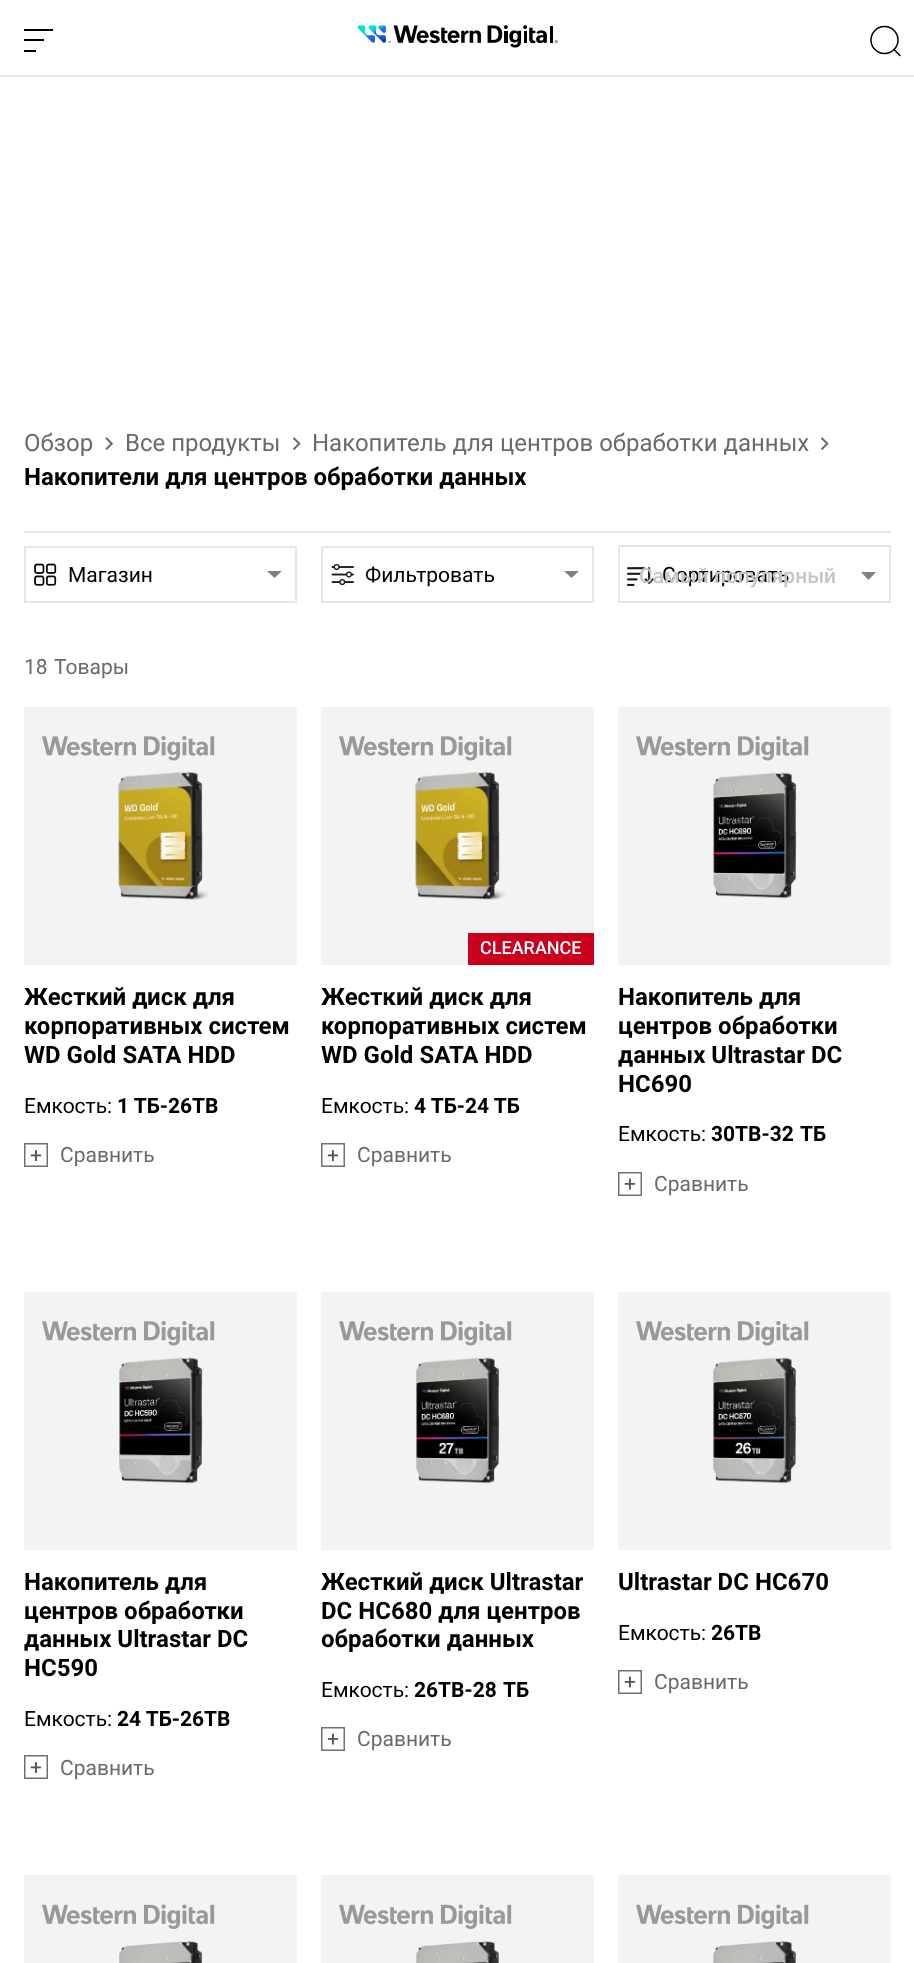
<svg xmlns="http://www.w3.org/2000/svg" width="914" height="1963">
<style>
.a{font:24px Roboto;fill:#6a6a6a}
.b{font:bold 24px Roboto;fill:#000}
.c{font:21px Roboto;fill:#000}
.d{font:500 21px Roboto;fill:#c5c5c5}
.e{font:21px Roboto;fill:#6a6a6a}
.f{font:bold 21px Roboto;fill:#000}
.g{font:500 18px Roboto;fill:#fff}
</style>
<rect width="100%" height="100%" fill="#fff"/>
<path fill="#e6e6e6" d="M0 75h914v2H0z"/>
<path fill="#000" d="M24 39h20v2H24z"/>
<path fill="#000" d="M24 29h29v2H24z"/>
<path fill="#000" d="M24 50h12v2H24z"/>
<image href="1.png" x="357" y="25" width="201" height="23"/>
<circle fill="none" stroke="#000" stroke-width="1.5" cx="884.5" cy="40" r="13.5"/>
<path fill="none" stroke="#000" stroke-width="1.5" stroke-linecap="round" d="M900 55.5l-5.5-5.5"/>
<image href="2.png" x="105" y="437" width="9" height="13"/>
<image href="3.png" x="292" y="437" width="9" height="13"/>
<image href="3.png" x="820" y="437" width="9" height="13"/>
<path fill="#e6e6e6" d="M24 531h867v2H24z"/>
<path fill="none" stroke="#e6e6e6" stroke-width="2" d="M25 547h271v55H25z"/>
<image href="4.png" x="34" y="563" width="23" height="23"/>
<path fill="#808080" d="M267 571l7.5 7l7.5-7z"/>
<path fill="none" stroke="#e6e6e6" stroke-width="2" d="M322 547h271v55H322z"/>
<image href="5.png" x="331" y="564" width="23" height="22"/>
<path fill="#808080" d="M564 571l7.5 7l7.5-7z"/>
<path fill="none" stroke="#e6e6e6" stroke-width="2" d="M619 546h271v56H619z"/>
<image href="6.png" x="627" y="567" width="27" height="19"/>
<path fill="#808080" d="M861 572l7.5 8l7.5-8z"/>
<path fill="#f2f3f3" d="M24 707h273v258H24z"/>
<image href="7.png" x="42" y="736" width="173" height="25"/>
<image href="8.png" x="118" y="771" width="91" height="129"/>
<image href="9.png" x="24" y="1143" width="24" height="24"/>
<path fill="#f2f3f3" d="M321 707h273v258H321z"/>
<image href="7.png" x="339" y="736" width="173" height="25"/>
<image href="8.png" x="415" y="771" width="91" height="129"/>
<path fill="#cb001c" d="M468 933h126v32H468z"/>
<image href="9.png" x="321" y="1143" width="24" height="24"/>
<path fill="#f2f3f3" d="M618 707h273v258H618z"/>
<image href="7.png" x="636" y="736" width="173" height="25"/>
<image href="10.png" x="713" y="772" width="84" height="127"/>
<image href="11.png" x="618" y="1172" width="24" height="24"/>
<path fill="#f2f3f3" d="M24 1292h273v258H24z"/>
<image href="7.png" x="42" y="1321" width="173" height="25"/>
<image href="12.png" x="119" y="1357" width="84" height="127"/>
<image href="9.png" x="24" y="1755" width="24" height="24"/>
<path fill="#f2f3f3" d="M321 1292h273v258H321z"/>
<image href="7.png" x="339" y="1321" width="173" height="25"/>
<image href="13.png" x="416" y="1357" width="84" height="127"/>
<image href="11.png" x="321" y="1727" width="24" height="24"/>
<path fill="#f2f3f3" d="M618 1292h273v258H618z"/>
<image href="7.png" x="636" y="1321" width="173" height="25"/>
<image href="14.png" x="713" y="1357" width="84" height="127"/>
<image href="11.png" x="618" y="1670" width="24" height="24"/>
<path fill="#f2f3f3" d="M24 1875h273v88H24z"/>
<image href="15.png" x="42" y="1904" width="173" height="25"/>
<image href="16.png" x="119" y="1941" width="84" height="22"/>
<path fill="#f2f3f3" d="M321 1875h273v88H321z"/>
<image href="15.png" x="339" y="1904" width="173" height="25"/>
<image href="17.png" x="416" y="1941" width="83" height="22"/>
<path fill="#f2f3f3" d="M618 1875h273v88H618z"/>
<image href="15.png" x="636" y="1904" width="173" height="25"/>
<image href="18.png" x="713" y="1941" width="83" height="22"/>
<text class="a" x="24" y="451">Обзор</text>
<text class="a" x="125" y="451">Все продукты</text>
<text class="a" x="312" y="451">Накопитель для центров обработки данных</text>
<text class="b" x="24" y="485">Накопители для центров обработки данных</text>
<text class="c" x="68" y="582">Магазин</text>
<text class="c" x="365" y="582">Фильтровать</text>
<text class="c" x="662" y="582">Сортировать</text>
<text class="d" x="639" y="583">Самый популярный</text>
<text class="e" x="24" y="674">18</text>
<text class="e" x="54" y="674">Товары</text>
<text class="b" x="24" y="1005">Жесткий диск для</text>
<text class="b" x="24" y="1034">корпоративных систем</text>
<text class="b" x="24" y="1063">WD Gold SATA HDD</text>
<text class="c" x="24" y="1113">Емкость:</text>
<text class="f" x="117" y="1113">1 ТБ-26TB</text>
<text class="e" x="60" y="1162">Сравнить</text>
<text class="g" x="480" y="954">CLEARANCE</text>
<text class="b" x="321" y="1005">Жесткий диск для</text>
<text class="b" x="321" y="1034">корпоративных систем</text>
<text class="b" x="321" y="1063">WD Gold SATA HDD</text>
<text class="c" x="321" y="1113">Емкость:</text>
<text class="f" x="414" y="1113">4 ТБ-24 ТБ</text>
<text class="e" x="357" y="1162">Сравнить</text>
<text class="b" x="618" y="1005">Накопитель для</text>
<text class="b" x="618" y="1034">центров обработки</text>
<text class="b" x="618" y="1063">данных Ultrastar DC</text>
<text class="b" x="618" y="1092">HC690</text>
<text class="c" x="618" y="1141">Емкость:</text>
<text class="f" x="711" y="1141" word-spacing="1">30TB-32 ТБ</text>
<text class="e" x="654" y="1191">Сравнить</text>
<text class="b" x="24" y="1590">Накопитель для</text>
<text class="b" x="24" y="1619">центров обработки</text>
<text class="b" x="24" y="1647">данных Ultrastar DC</text>
<text class="b" x="24" y="1676">HC590</text>
<text class="c" x="24" y="1726">Емкость:</text>
<text class="f" x="117" y="1726">24 ТБ-26TB</text>
<text class="e" x="60" y="1775">Сравнить</text>
<text class="b" x="321" y="1590">Жесткий диск Ultrastar</text>
<text class="b" x="321" y="1619">DC HC680 для центров</text>
<text class="b" x="321" y="1647">обработки данных</text>
<text class="c" x="321" y="1697">Емкость:</text>
<text class="f" x="414" y="1697" word-spacing="1">26TB-28 ТБ</text>
<text class="e" x="357" y="1746">Сравнить</text>
<text class="b" x="618" y="1590">Ultrastar DC HC670</text>
<text class="c" x="618" y="1640">Емкость:</text>
<text class="f" x="711" y="1640">26TB</text>
<text class="e" x="654" y="1689">Сравнить</text>
</svg>
